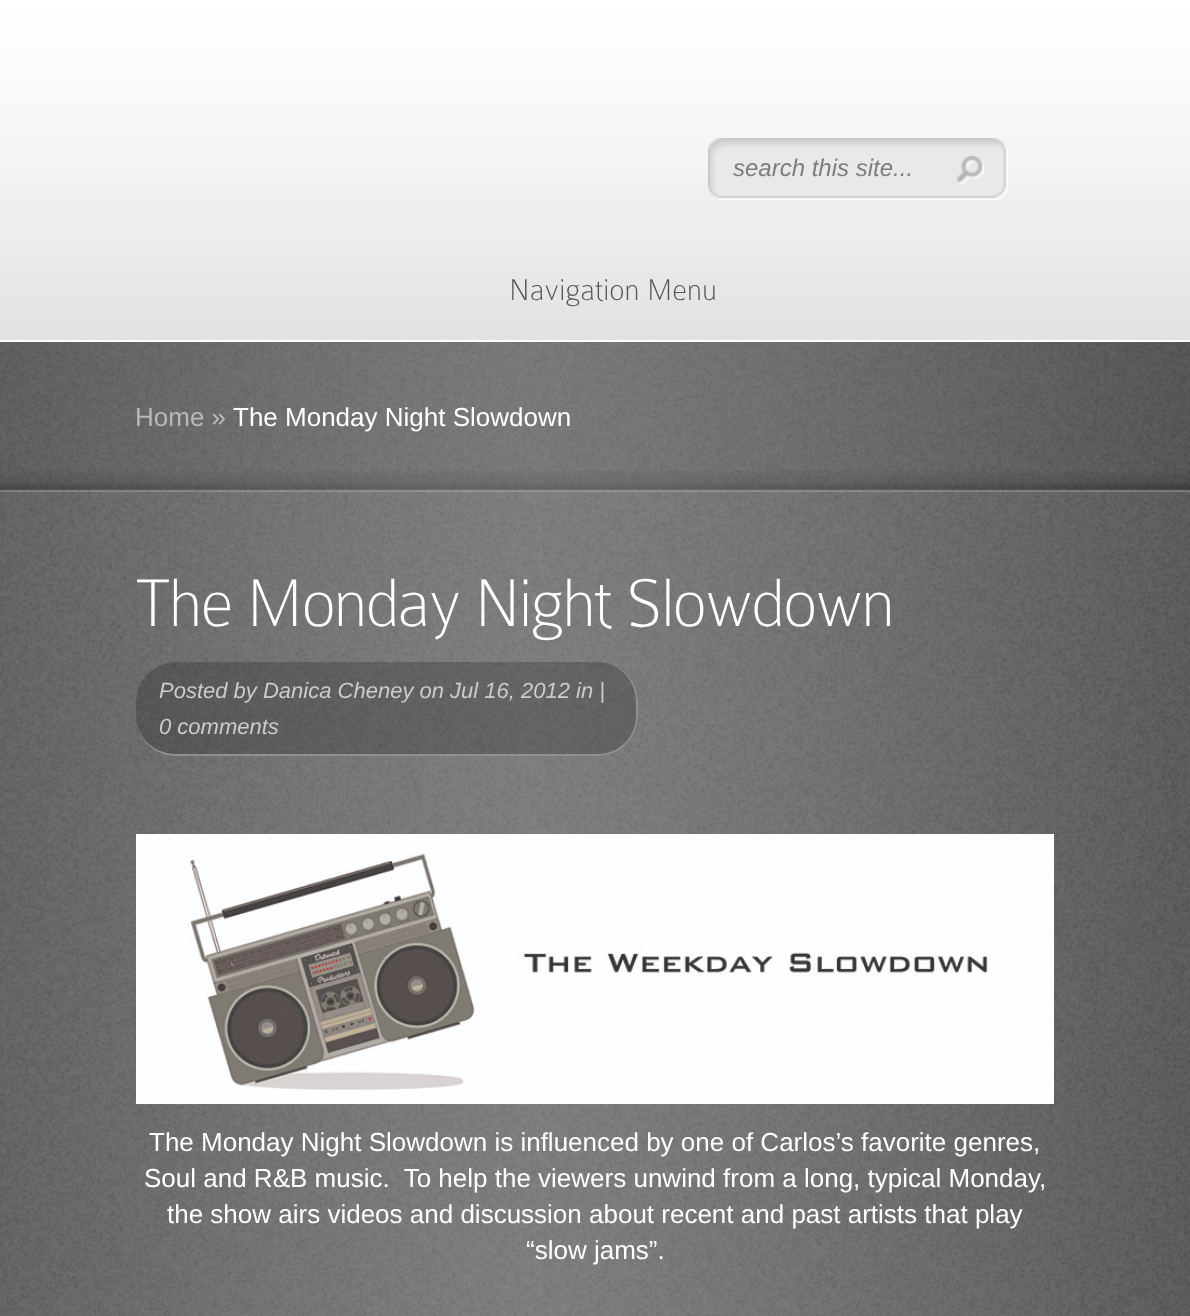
<svg xmlns="http://www.w3.org/2000/svg" width="1190" height="1316">
<style>
.a{font:italic 24px Liberation Sans;fill:#7d7d7d}
.b{font:100 32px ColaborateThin;fill:#535353}
.c{font:26px Liberation Sans;fill:#b9b9b9}
.d{font:26px Liberation Sans;fill:#fff}
.e{font:100 72px ColaborateThin;letter-spacing:-2px;fill:#fff}
.f{font:italic 22px Liberation Sans;fill:#ccc}
</style>
<rect width="100%" height="100%" fill="#fff"/>
<image href="1.png" x="0" y="342" width="1190" height="974"/>
<image href="2.png" x="0" y="0" width="1190" height="340"/>
<image href="3.png" x="708" y="138" width="300" height="62"/>
<image href="4.png" x="956" y="156" width="28" height="28"/>
<image href="5.png" x="0" y="484" width="1190" height="8"/>
<image href="6.png" x="0" y="470" width="1190" height="22"/>
<path fill="#00000017" d="M0 342h1190v150H0z"/>
<image href="7.png" x="0" y="342" width="1190" height="150"/>
<image href="8.png" x="0" y="492" width="1190" height="824"/>
<rect fill="#00000033" x="136" y="662" width="502" height="94" rx="40"/>
<path fill="#909090" fill-rule="evenodd" d="M176 662h422c22 0 40 18 40 40v14c0 22-18 40-40 40h-422c-22 0-40-18-40-40v-14c0-22 18-40 40-40zm0 0h422c21 0 38 18 38 40v14c0 21-17 38-38 38h-422c-22 0-40-17-40-38v-14c0-22 18-40 40-40z"/>
<image href="9.png" x="136" y="834" width="918" height="270"/>
<text class="a" x="733" y="176">search this site...</text>
<text class="b" x="509" y="300">Navigation Menu</text>
<text class="c" x="135" y="426">Home »</text>
<text class="d" x="233" y="426">The Monday Night Slowdown</text>
<text class="e" x="135" y="626">The Monday Night Slowdown</text>
<text class="f" x="159" y="698">Posted by Danica Cheney on Jul 16, 2012 in |</text>
<text class="f" x="159" y="734">0 comments</text>
<text class="d" x="149" y="1151">The Monday Night Slowdown is influenced by one of Carlos’s favorite genres,</text>
<text class="d" xml:space="preserve" x="144" y="1187">Soul and R&amp;B music.  To help the viewers unwind from a long, typical Monday,</text>
<text class="d" x="167" y="1223">the show airs videos and discussion about recent and past artists that play</text>
<text class="d" x="526" y="1259">“slow jams”.</text>
</svg>
